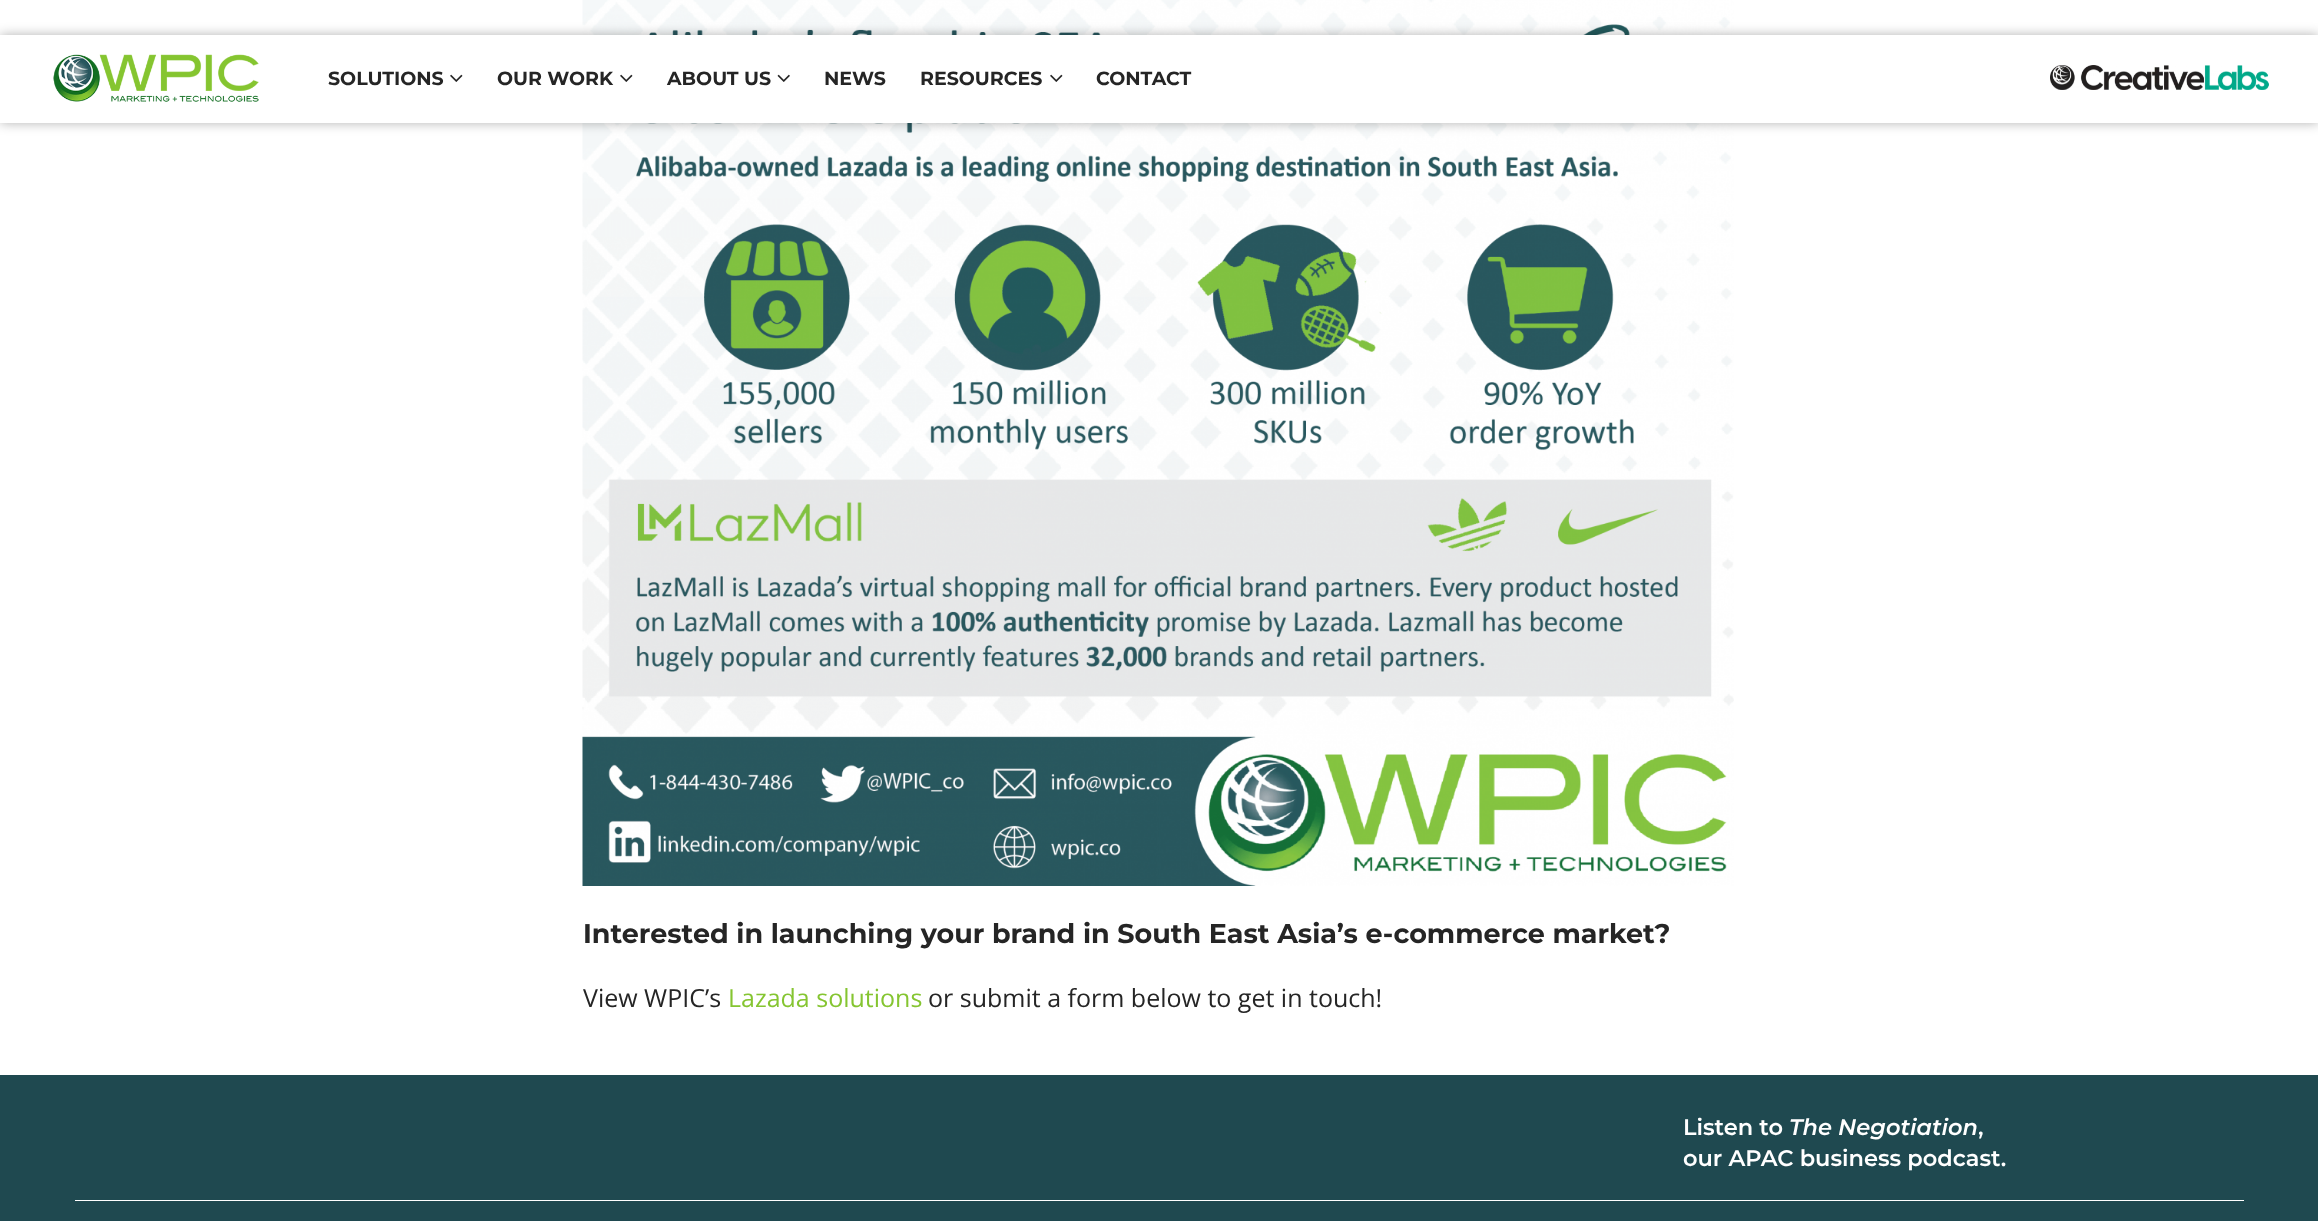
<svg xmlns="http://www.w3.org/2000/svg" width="2318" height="1221">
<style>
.a{font:bold 19px Montserrat;fill:#252525}
.b{font:bold 27px Montserrat;fill:#252525}
.c{font:25px Open Sans;fill:#252525}
.d{font:25px Open Sans;fill:#85c531}
.e{font:600 22.5px Montserrat;fill:#fff}
.f{font:italic 600 22.5px Montserrat;fill:#fff}
</style>
<rect width="100%" height="100%" fill="#fff"/>
<image href="5.png" x="582" y="0" width="1152" height="886"/>
<path fill="#0000004d" filter="blur(6px)" d="M0 35h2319v88H0z"/>
<path fill="#fff" d="M0 35h2318v88H0z"/>
<image href="1.png" x="53" y="54" width="206" height="48"/>
<image href="2.png" x="450" y="74" width="13" height="8"/>
<image href="2.png" x="620" y="74" width="13" height="8"/>
<image href="3.png" x="777" y="74" width="13" height="8"/>
<image href="2.png" x="1050" y="74" width="13" height="8"/>
<image href="4.png" x="2050" y="65" width="219" height="25"/>
<path fill="#1f4950" d="M0 1075h2318v146H0z"/>
<path fill="#fff" d="M75 1200h2169v1H75z"/>
<text class="a" x="328" y="85">SOLUTIONS</text>
<text class="a" x="497" y="85">OUR WORK</text>
<text class="a" x="667" y="85">ABOUT US</text>
<text class="a" x="824" y="85">NEWS</text>
<text class="a" x="920" y="85">RESOURCES</text>
<text class="a" x="1096" y="85">CONTACT</text>
<text class="b" x="583" y="943">Interested in launching your brand in South East Asia’s e-commerce market?</text>
<text class="c" x="583" y="1007">View WPIC’s</text>
<text class="d" x="728" y="1007">Lazada solutions</text>
<text class="c" x="928" y="1007">or submit a form below to get in touch!</text>
<text class="e" x="1683" y="1135">Listen to</text>
<text class="f" x="1789" y="1135">The Negotiation</text>
<text class="e" x="1978" y="1135">,</text>
<text class="e" x="1683" y="1166">our APAC business podcast.</text>
</svg>
